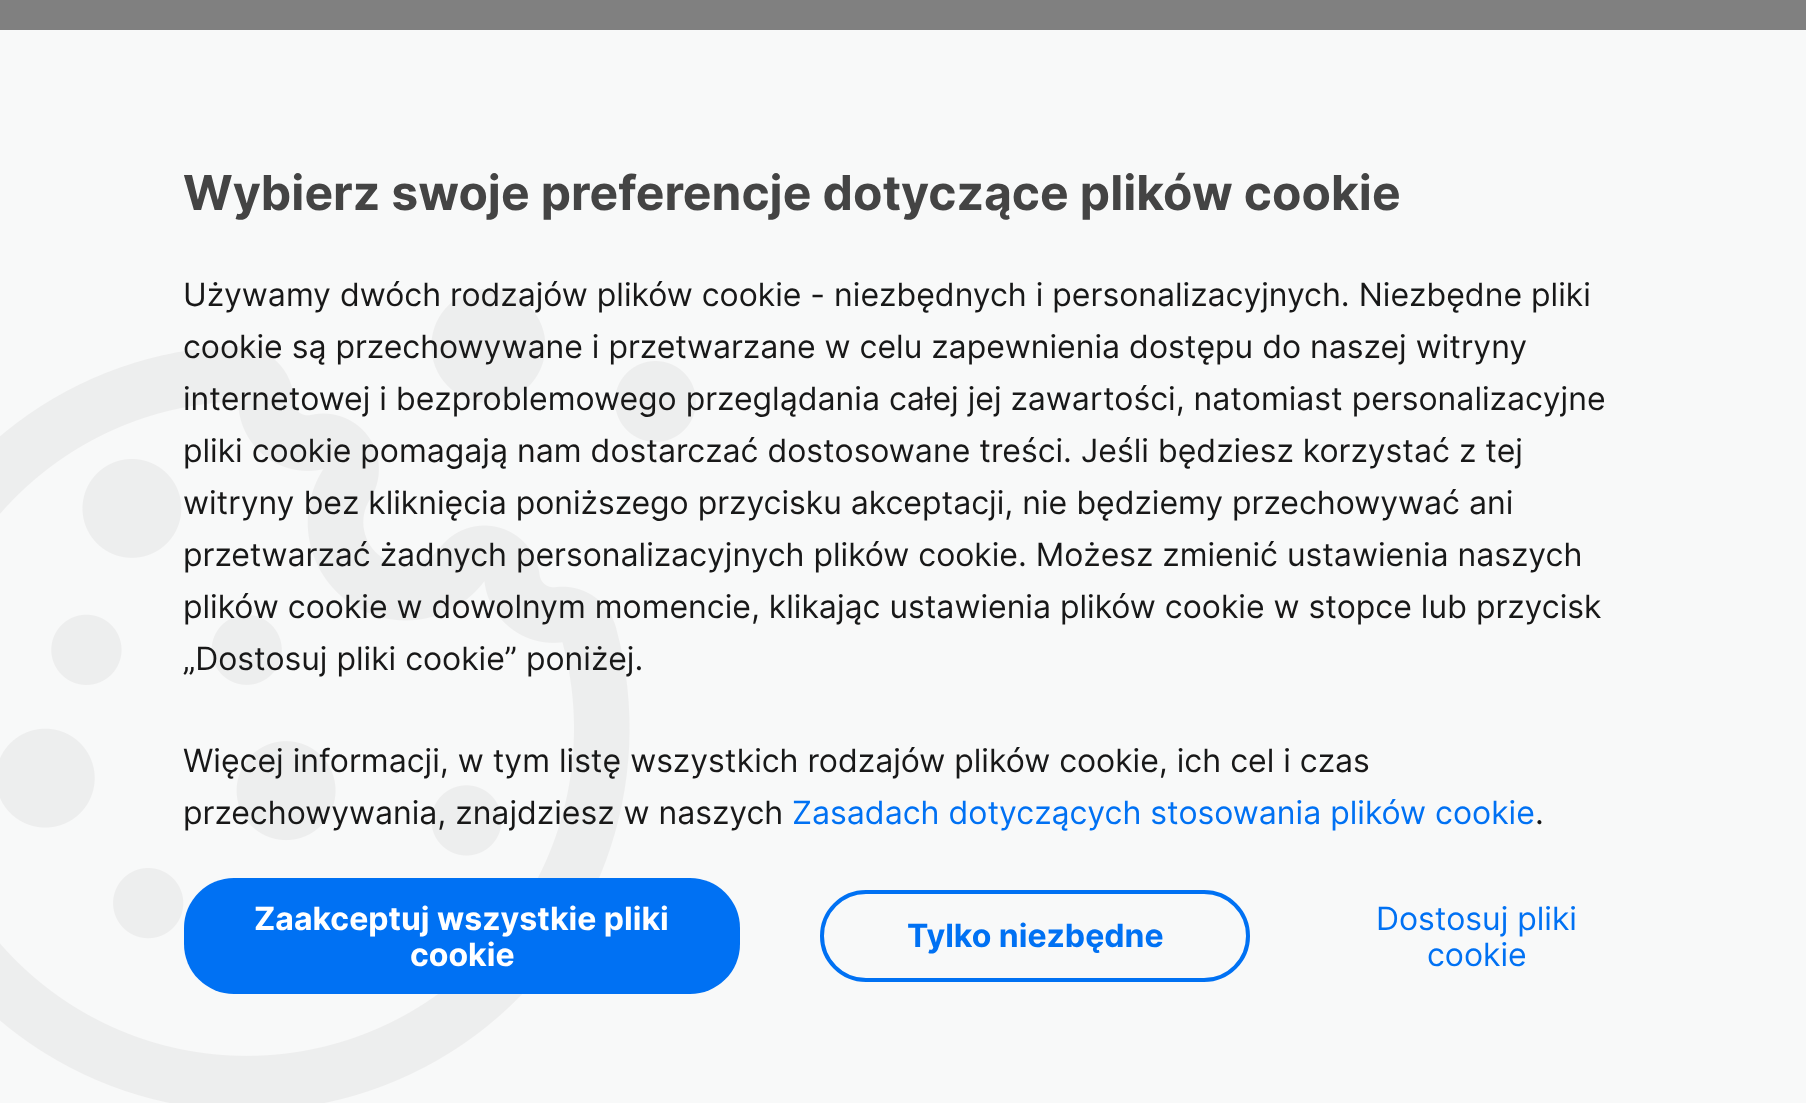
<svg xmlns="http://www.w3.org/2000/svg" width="1806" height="1103">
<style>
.a{font:bold 48px Inter;fill:#444}
.b{font:32px Inter;fill:#181818}
.c{font:32px Inter;fill:#0071f3}
.d{font:bold 32px Inter;fill:#fff}
.e{font:bold 32px Inter;fill:#0071f3}
</style>
<rect width="100%" height="100%" fill="#808080"/>
<path fill="#f8f9f9" d="M0 30h1806v1073H0z"/>
<image href="1.png" x="0" y="289" width="696" height="814"/>
<rect fill="#0071f3" x="184" y="878" width="556" height="116" rx="50"/>
<rect fill="none" stroke="#0071f3" stroke-width="4" x="822" y="892" width="426" height="88" rx="44"/>
<text class="a" x="183" y="210">Wybierz swoje preferencje dotyczące plików cookie</text>
<text class="b" x="183" y="306">Używamy dwóch rodzajów plików cookie - niezbędnych i personalizacyjnych. Niezbędne pliki</text>
<text class="b" x="183" y="358">cookie są przechowywane i przetwarzane w celu zapewnienia dostępu do naszej witryny</text>
<text class="b" x="183" y="410">internetowej i bezproblemowego przeglądania całej jej zawartości, natomiast personalizacyjne</text>
<text class="b" x="183" y="462">pliki cookie pomagają nam dostarczać dostosowane treści. Jeśli będziesz korzystać z tej</text>
<text class="b" x="183" y="514">witryny bez kliknięcia poniższego przycisku akceptacji, nie będziemy przechowywać ani</text>
<text class="b" x="183" y="566">przetwarzać żadnych personalizacyjnych plików cookie. Możesz zmienić ustawienia naszych</text>
<text class="b" x="183" y="618">plików cookie w dowolnym momencie, klikając ustawienia plików cookie w stopce lub przycisk</text>
<text class="b" x="183" y="670">„Dostosuj pliki cookie” poniżej.</text>
<text class="b" x="183" y="772">Więcej informacji, w tym listę wszystkich rodzajów plików cookie, ich cel i czas</text>
<text class="b" x="183" y="824">przechowywania, znajdziesz w naszych</text>
<text class="c" x="792" y="824">Zasadach dotyczących stosowania plików cookie</text>
<text class="b" x="1535" y="824">.</text>
<text class="d" x="254" y="930">Zaakceptuj wszystkie pliki</text>
<text class="d" x="410" y="966">cookie</text>
<text class="e" x="907" y="947">Tylko niezbędne</text>
<text class="c" x="1376" y="930">Dostosuj pliki</text>
<text class="c" x="1427" y="966">cookie</text>
</svg>
